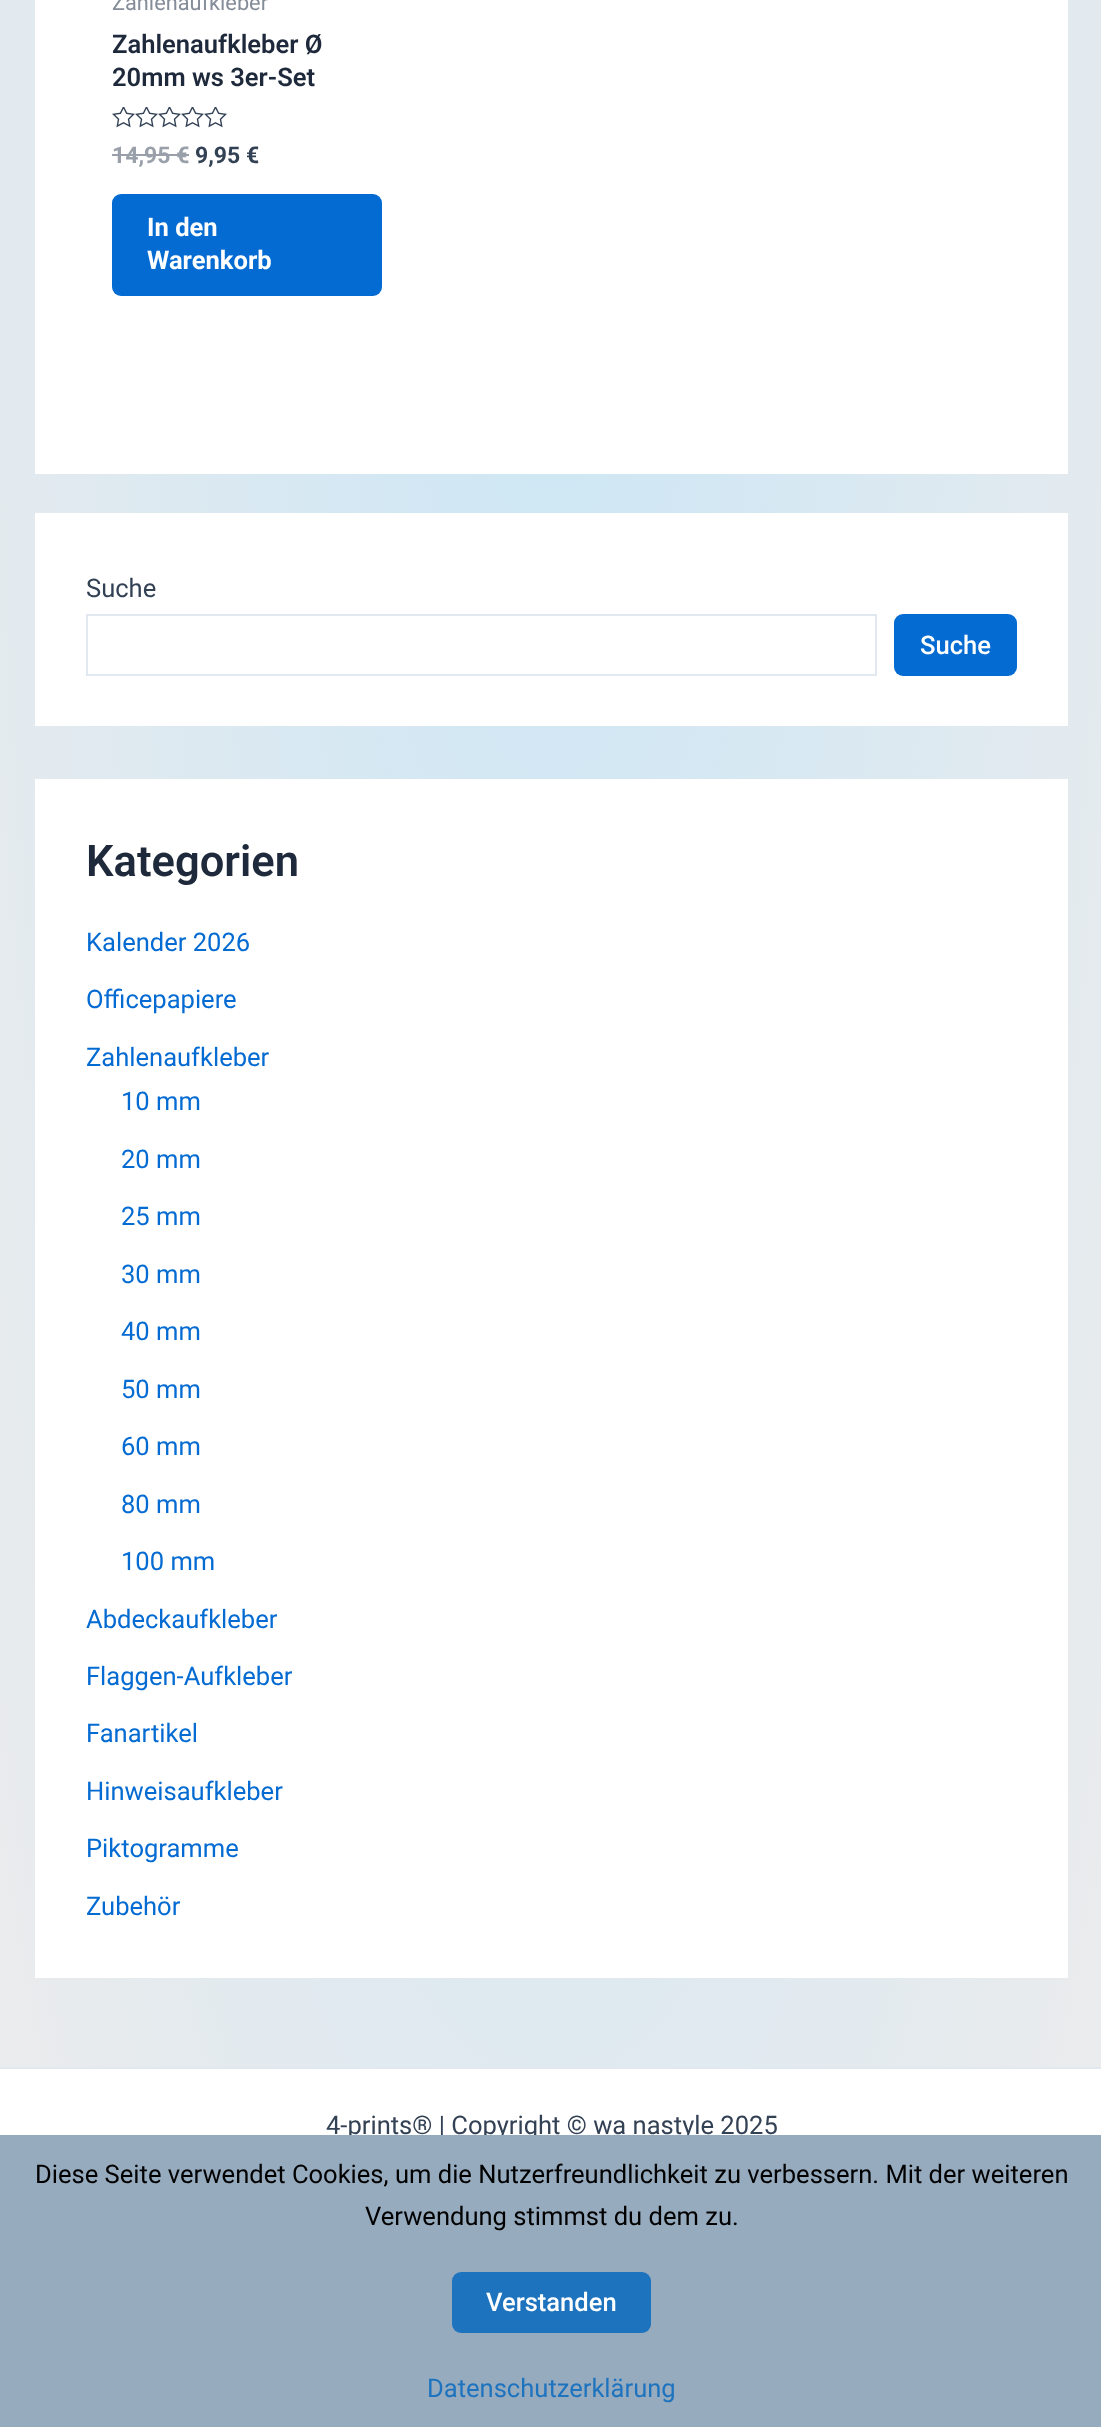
<svg xmlns="http://www.w3.org/2000/svg" width="1101" height="2427">
<style>
.a{font:21.75px Roboto;fill:#858d99}
.b{font:600 25.55px Roboto;fill:#1e293b}
.c{font:bold 23px Roboto;fill:#99a0aa}
.d{font:bold 23px Roboto;fill:#334155}
.e{font:bold 25.55px Roboto;fill:#fff}
.f{font:25.55px Roboto;fill:#334155}
.g{font:500 25.55px Roboto;fill:#fff}
.h{font:600 43.5px Roboto;fill:#1e293b}
.i{font:25.55px Roboto;fill:#046bd2}
.j{font:25.55px Roboto;fill:#000}
.k{font:25.55px Roboto;fill:#1e73be}
</style>
<defs>
<radialGradient id="g1" gradientUnits="userSpaceOnUse" cx="0" cy="0" r="1" gradientTransform="matrix(780 0 0 3671 551 -169)"><stop offset="0" stop-color="#cae6f6"/><stop offset="1" stop-color="#edecec"/></radialGradient>
</defs>
<rect width="100%" height="100%" fill="#fff"/>
<path fill="url(#g1)" d="M0 0h1101v2067H0z"/>
<path fill="#fff" d="M35 0h1033v474H35z"/>
<image href="1.png" x="112" y="107" width="115" height="21"/>
<path fill="#99a0aa" d="M112 154h77v2H112z"/>
<rect fill="#046bd2" x="112" y="194" width="270" height="102" rx="9"/>
<path fill="#fff" d="M35 513h1033v213H35z"/>
<path fill="none" stroke="#e2e8f0" stroke-width="2" d="M87 615h789v60H87z"/>
<rect fill="#046bd2" x="894" y="614" width="123" height="62" rx="9"/>
<path fill="#fff" d="M35 779h1033v1199H35z"/>
<path fill="#e2e8f0" d="M0 2067h1101v2H0z"/>
<text class="a" x="112" y="10">Zahlenaufkleber</text>
<text class="b" x="112" y="53">Zahlenaufkleber Ø</text>
<text class="b" x="112" y="86">20mm ws 3er-Set</text>
<text class="c" x="112" y="163">14,95 €</text>
<text class="d" x="195" y="163">9,95 €</text>
<text class="e" x="147" y="236">In den</text>
<text class="e" x="147" y="269">Warenkorb</text>
<text class="f" x="86" y="597">Suche</text>
<text class="g" x="920" y="654">Suche</text>
<text class="h" x="86" y="876">Kategorien</text>
<text class="i" x="86" y="951">Kalender 2026</text>
<text class="i" x="86" y="1008">Officepapiere</text>
<text class="i" x="86" y="1066">Zahlenaufkleber</text>
<text class="i" x="121" y="1110">10 mm</text>
<text class="i" x="121" y="1168">20 mm</text>
<text class="i" x="121" y="1225">25 mm</text>
<text class="i" x="121" y="1283">30 mm</text>
<text class="i" x="121" y="1340">40 mm</text>
<text class="i" x="121" y="1398">50 mm</text>
<text class="i" x="121" y="1455">60 mm</text>
<text class="i" x="121" y="1513">80 mm</text>
<text class="i" x="121" y="1570">100 mm</text>
<text class="i" x="86" y="1628">Abdeckaufkleber</text>
<text class="i" x="86" y="1685">Flaggen-Aufkleber</text>
<text class="i" x="86" y="1742">Fanartikel</text>
<text class="i" x="86" y="1800">Hinweisaufkleber</text>
<text class="i" x="86" y="1857">Piktogramme</text>
<text class="i" x="86" y="1915">Zubehör</text>
<text class="f" x="326" y="2134">4-prints® | Copyright © wa nastyle 2025</text>
<path fill="#97abbf" d="M0 2135h1101v292H0z"/>
<text class="j" x="35" y="2183">Diese Seite verwendet Cookies, um die Nutzerfreundlichkeit zu verbessern. Mit der weiteren</text>
<text class="j" x="365" y="2225">Verwendung stimmst du dem zu.</text>
<rect fill="#1e73be" x="452" y="2272" width="199" height="61" rx="9"/>
<text class="g" x="486" y="2311">Verstanden</text>
<text class="k" x="427" y="2397">Datenschutzerklärung</text>
</svg>
